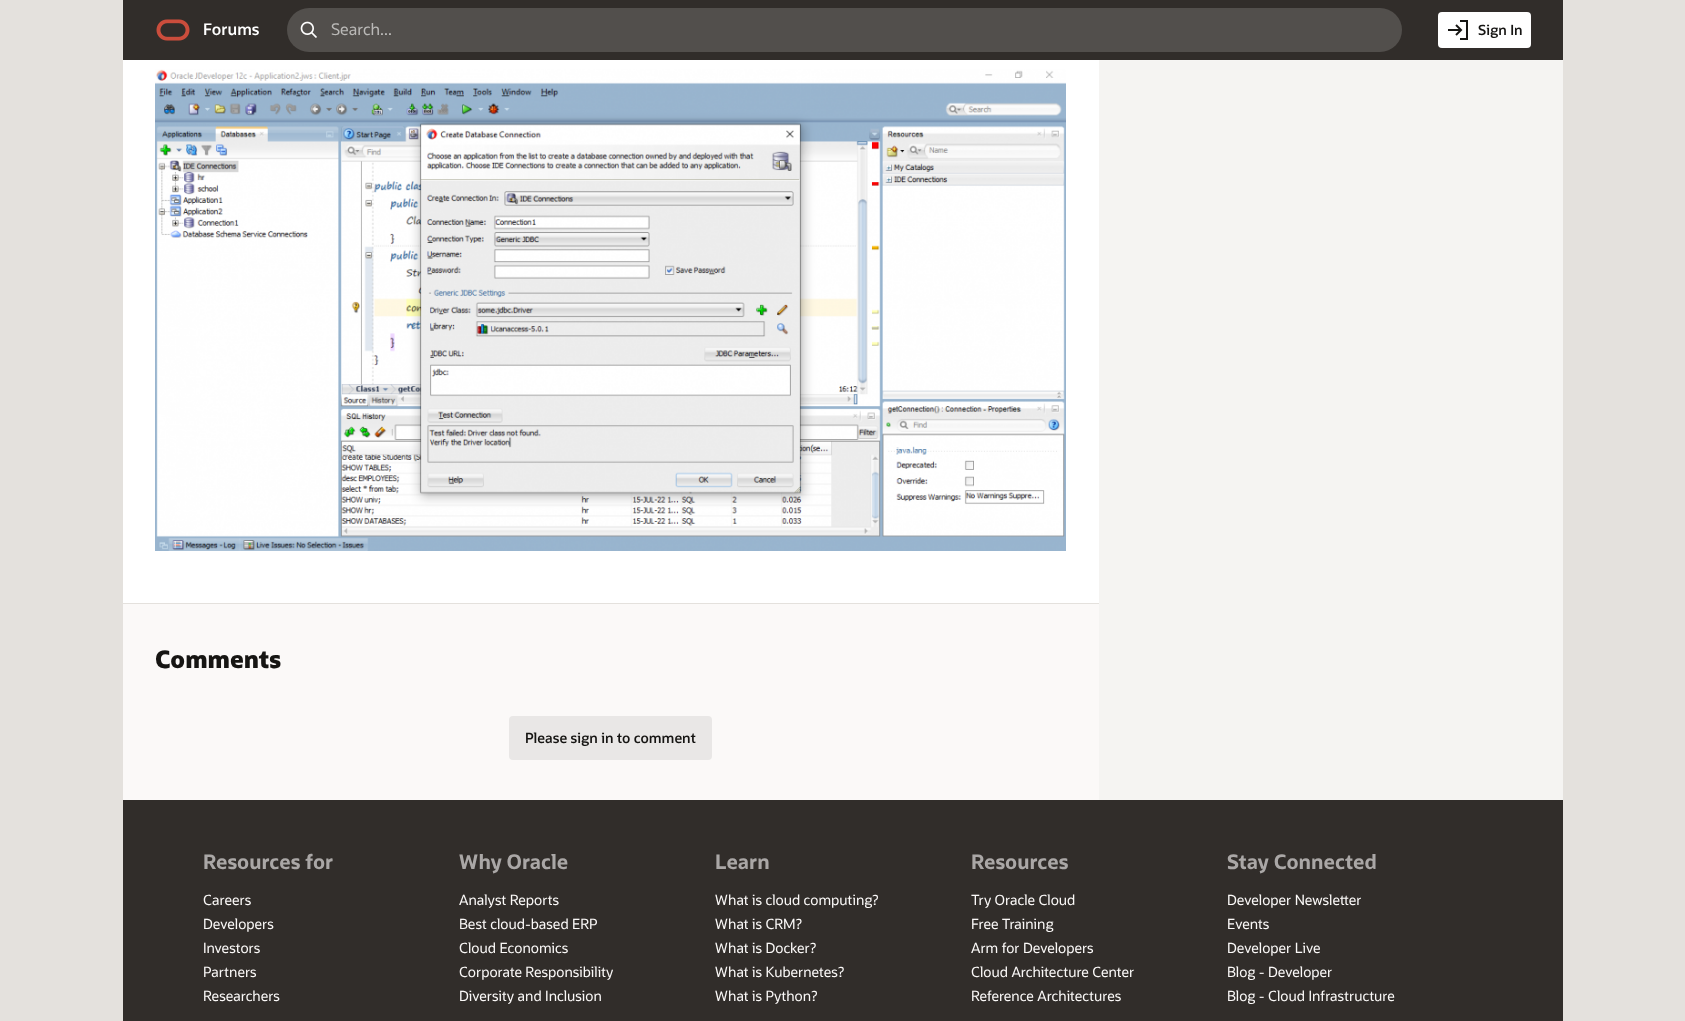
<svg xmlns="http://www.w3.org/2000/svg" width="1685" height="1021">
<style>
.a{font:600 16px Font;fill:#fff}
.b{font:16px Font;fill:#bab9b7}
.c{font:600 14px Font;fill:#161513}
.d{font:800 24px Font;fill:#161513}
.e{font:bold 20px Font;fill:#aaa7a6}
.f{font:14px Font;fill:#fbf9f8}
</style>
<rect width="100%" height="100%" fill="#e4e1dd"/>
<path fill="#fff" d="M123 60h976v543H123z"/>
<path fill="#f5f4f2" d="M1099 60h464v740H1099z"/>
<path fill="none" stroke="#ffffff1a" d="M122.5 -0.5h1441v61H122.5z"/>
<path fill="#312d2a" d="M123 0h1440v60H123z"/>
<image href="1.png" x="156" y="19" width="34" height="22"/>
<rect fill="#524f4c" x="287" y="8" width="1115" height="44" rx="22"/>
<image href="2.png" x="300" y="21" width="17" height="17"/>
<rect fill="#fff" x="1438" y="12" width="93" height="36" rx="4"/>
<image href="3.png" x="1448" y="20" width="20" height="20"/>
<path fill="#fbf9f8" d="M123 604h976v196H123z"/>
<image href="4.png" x="155" y="69" width="911" height="482"/>
<rect fill="#e9e7e6" x="509" y="716" width="203" height="44" rx="4"/>
<path fill="#312d2a" d="M123 800h1440v221H123z"/>
<text class="a" x="203" y="35">Forums</text>
<text class="b" x="331" y="35">Search...</text>
<text class="c" x="1478" y="35">Sign In</text>
<text class="d" x="155" y="668">Comments</text>
<text class="c" x="525" y="743">Please sign in to comment</text>
<text class="e" x="203" y="869">Resources for</text>
<text class="f" x="203" y="905">Careers</text>
<text class="f" x="203" y="929">Developers</text>
<text class="f" x="203" y="953">Investors</text>
<text class="f" x="203" y="977">Partners</text>
<text class="f" x="203" y="1001">Researchers</text>
<text class="e" x="459" y="869">Why Oracle</text>
<text class="f" x="459" y="905">Analyst Reports</text>
<text class="f" x="459" y="929">Best cloud-based ERP</text>
<text class="f" x="459" y="953">Cloud Economics</text>
<text class="f" x="459" y="977">Corporate Responsibility</text>
<text class="f" x="459" y="1001">Diversity and Inclusion</text>
<text class="e" x="715" y="869">Learn</text>
<text class="f" x="715" y="905">What is cloud computing?</text>
<text class="f" x="715" y="929">What is CRM?</text>
<text class="f" x="715" y="953">What is Docker?</text>
<text class="f" x="715" y="977">What is Kubernetes?</text>
<text class="f" x="715" y="1001">What is Python?</text>
<text class="e" x="971" y="869">Resources</text>
<text class="f" x="971" y="905">Try Oracle Cloud</text>
<text class="f" x="971" y="929">Free Training</text>
<text class="f" x="971" y="953">Arm for Developers</text>
<text class="f" x="971" y="977">Cloud Architecture Center</text>
<text class="f" x="971" y="1001">Reference Architectures</text>
<text class="e" x="1227" y="869">Stay Connected</text>
<text class="f" x="1227" y="905">Developer Newsletter</text>
<text class="f" x="1227" y="929">Events</text>
<text class="f" x="1227" y="953">Developer Live</text>
<text class="f" x="1227" y="977">Blog - Developer</text>
<text class="f" x="1227" y="1001">Blog - Cloud Infrastructure</text>
</svg>
